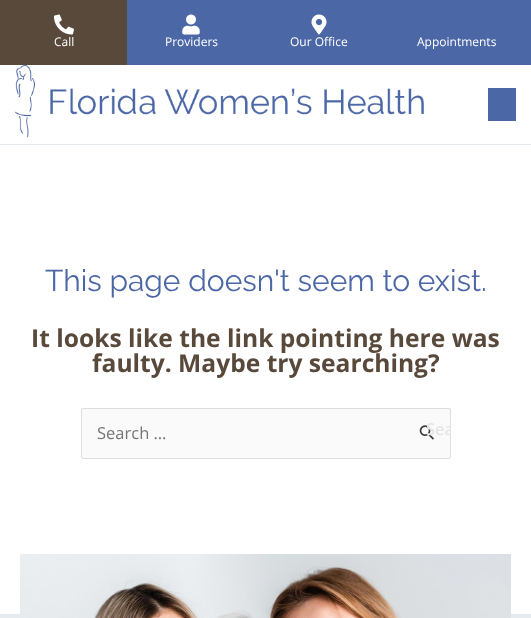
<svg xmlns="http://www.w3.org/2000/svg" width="531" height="618">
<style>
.a{font:12px Open Sans;fill:#fff}
.b{font:30px Raleway;fill:#4c67a6}
.c{font:bold 24.6px Open Sans;fill:#58493b}
.d{font:16.5px Open Sans;fill:#757575}
.e{font:600 16.5px Open Sans;fill:#e6e6e6}
</style>
<defs>
<clipPath id="clip1"><rect x="406" y="408" width="45" height="43" rx="2"/></clipPath>
</defs>
<rect width="100%" height="100%" fill="#fff"/>
<path fill="#58493b" d="M0 0h127v65H0z"/>
<image href="1.png" x="54" y="14" width="20" height="21"/>
<path fill="#4c67a6" d="M127 0h404v65H127z"/>
<image href="2.png" x="182" y="14" width="18" height="21"/>
<image href="3.png" x="311" y="14" width="16" height="21"/>
<path fill="#e6ebef" d="M0 144h531v1H0z"/>
<image href="4.png" x="15" y="65" width="409" height="73"/>
<path fill="#4c67a6" d="M488 88h28v33H488z"/>
<rect fill="#fafafa" stroke="#ddd" x="81.5" y="408.5" width="369" height="50" rx="1.5"/>
<image href="5.png" x="419" y="425" width="15" height="15"/>
<path fill="#e6ebef" d="M0 614h531v4H0z"/>
<image href="6.png" x="20" y="554" width="491" height="64"/>
<text class="a" x="54" y="46">Call</text>
<text class="a" x="165" y="46">Providers</text>
<text class="a" x="290" y="46">Our Office</text>
<text class="a" x="417" y="46">Appointments</text>
<text class="b" x="45" y="291">This page doesn't seem to exist.</text>
<text class="c" x="31" y="347">It looks like the link pointing here was</text>
<text class="c" x="92" y="372">faulty. Maybe try searching?</text>
<text class="d" x="97" y="439">Search …</text>
<g clip-path="url(#clip1)">
<text class="e" x="426" y="435">Sea</text>
</g>
</svg>
